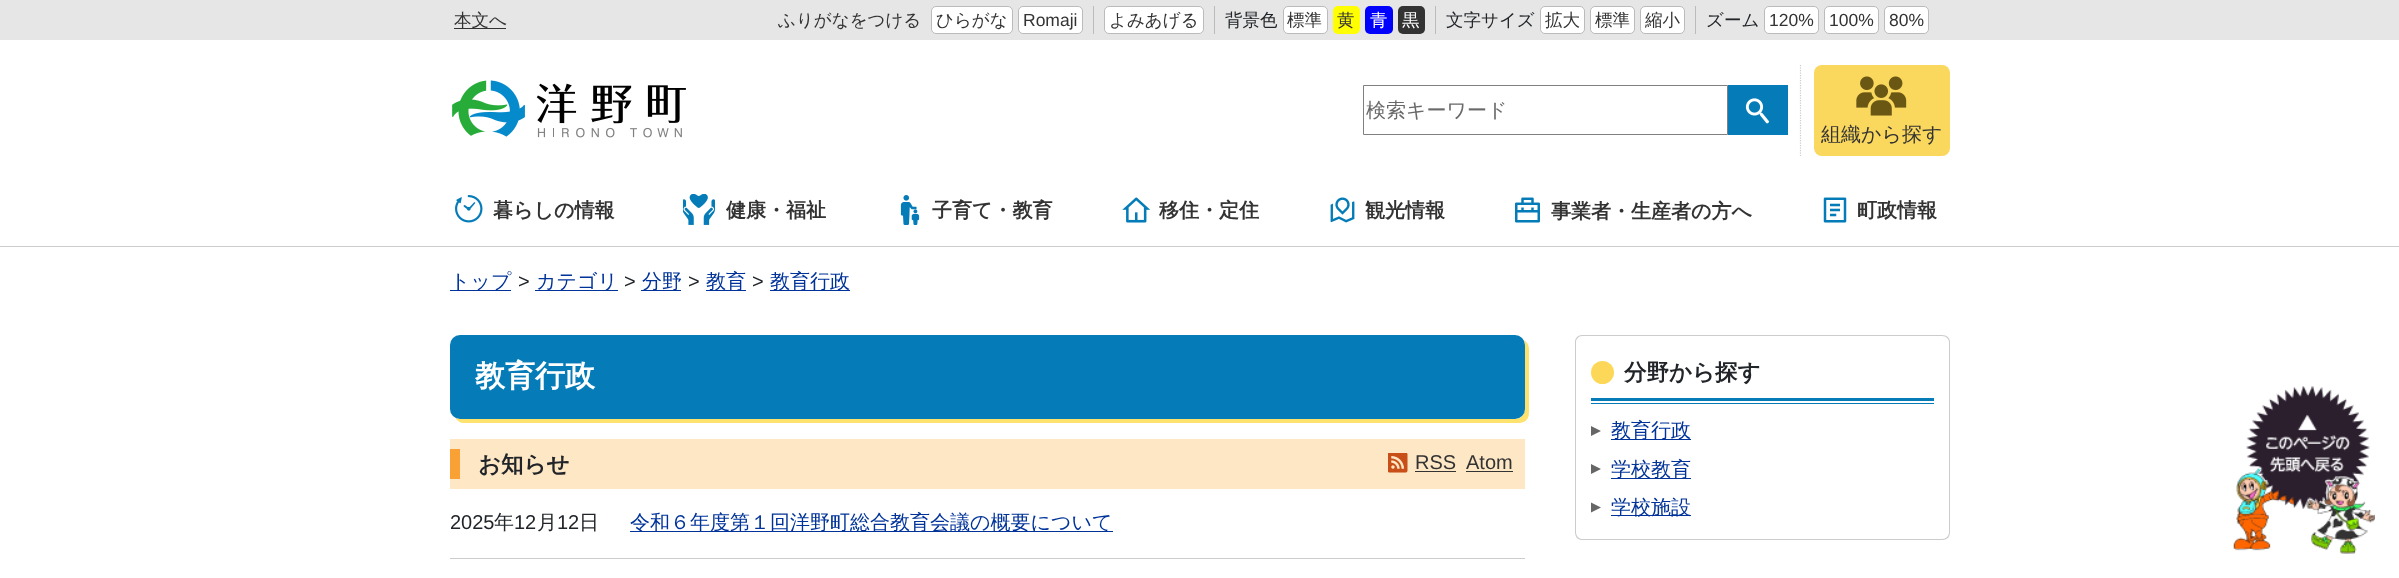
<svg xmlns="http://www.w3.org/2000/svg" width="2399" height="578">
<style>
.a{font:500 17.5px WenQuanYi Zen Hei;fill:#333}
.b{font:17.5px Liberation Sans;fill:#333}
.c{font:500 17.5px WenQuanYi Zen Hei;fill:#212529}
.d{font:500 17.5px WenQuanYi Zen Hei;fill:#fff}
.e{font:500 20px WenQuanYi Zen Hei;fill:#696969}
.f{font:500 20px WenQuanYi Zen Hei;fill:#333}
.g{font:bold 20px WenQuanYi Zen Hei;fill:#333}
.h{font:500 20px WenQuanYi Zen Hei;fill:#039}
.i{font:20px Liberation Sans;fill:#212529}
.j{font:bold 30px WenQuanYi Zen Hei;fill:#fff}
.k{font:bold 22.5px WenQuanYi Zen Hei;fill:#212529}
.l{font:20px Liberation Sans;fill:#333}
.m{font:500 20px WenQuanYi Zen Hei;fill:#212529}
</style>
<rect width="100%" height="100%" fill="#fff"/>
<path fill="#e6e6e6" d="M0 0h2399v40H0z"/>
<path fill="#333" d="M454 28h52v1H454z"/>
<rect fill="#fff" stroke="#bbb" x="931.5" y="6.5" width="81" height="27" rx="4.5"/>
<rect fill="#fff" stroke="#bbb" x="1018.5" y="6.5" width="64" height="27" rx="4.5"/>
<path fill="#bbb" d="M1093 6h1v28H1093z"/>
<rect fill="#fff" stroke="#bbb" x="1104.5" y="6.5" width="99" height="27" rx="4.5"/>
<path fill="#bbb" d="M1214 6h1v28H1214z"/>
<rect fill="#fff" stroke="#bbb" x="1283.5" y="6.5" width="44" height="27" rx="4.5"/>
<rect fill="#ff0" x="1333" y="6" width="27" height="28" rx="5"/>
<rect fill="#00f" x="1365" y="6" width="28" height="28" rx="5"/>
<rect fill="#333" x="1398" y="6" width="27" height="28" rx="5"/>
<path fill="#bbb" d="M1435 6h1v28H1435z"/>
<rect fill="#fff" stroke="#bbb" x="1540.5" y="6.5" width="44" height="27" rx="4.5"/>
<rect fill="#fff" stroke="#bbb" x="1590.5" y="6.5" width="44" height="27" rx="4.5"/>
<rect fill="#fff" stroke="#bbb" x="1640.5" y="6.5" width="44" height="27" rx="4.5"/>
<path fill="#bbb" d="M1695 6h1v28H1695z"/>
<rect fill="#fff" stroke="#bbb" x="1764.5" y="6.5" width="54" height="27" rx="4.5"/>
<rect fill="#fff" stroke="#bbb" x="1824.5" y="6.5" width="54" height="27" rx="4.5"/>
<rect fill="#fff" stroke="#bbb" x="1884.5" y="6.5" width="44" height="27" rx="4.5"/>
<image href="1.png" x="452" y="80" width="234" height="58"/>
<path fill="none" stroke="#808080" d="M1363.5 85.5h364v49H1363.5z"/>
<path fill="#057cb7" d="M1728 85h60v50H1728z"/>
<image href="2.png" x="1745" y="98" width="25" height="26"/>
<path fill="none" stroke="#ccc" stroke-width="1.2" stroke-dasharray="1.25 1.25" d="M1800.5 65v91"/>
<rect fill="#fad75d" x="1814" y="65" width="136" height="91" rx="8"/>
<image href="3.png" x="1856" y="76" width="51" height="40"/>
<path fill="#ccc" d="M0 246h2399v1H0z"/>
<image href="4.png" x="455" y="195" width="28" height="28"/>
<image href="5.png" x="683" y="194" width="32" height="31"/>
<image href="6.png" x="900" y="195" width="20" height="30"/>
<image href="7.png" x="1122" y="197" width="29" height="26"/>
<image href="8.png" x="1330" y="197" width="25" height="26"/>
<image href="9.png" x="1515" y="197" width="25" height="26"/>
<image href="10.png" x="1823" y="197" width="24" height="26"/>
<path fill="#039" d="M450 290h61v1H450z"/>
<path fill="#039" d="M535 290h83v1H535z"/>
<path fill="#039" d="M641 290h40v1H641z"/>
<path fill="#039" d="M706 290h40v1H706z"/>
<path fill="#039" d="M770 290h80v1H770z"/>
<path fill="#fee26e" d="M455 417c2 4 5 6 9 6h1055c6 0 10-4 10-10v-64c0-4-2-7-5-9c1 2 1 3 1 5v64c0 5-4 10-10 10h-1055c-2 0-4-1-5-2z"/>
<rect fill="#057cb7" x="450" y="335" width="1075" height="84" rx="10"/>
<path fill="#fde7c5" d="M450 439h1075v50H450z"/>
<path fill="#faa136" d="M450 449h10v30H450z"/>
<image href="11.png" x="1388" y="453" width="20" height="20"/>
<path fill="#333" d="M1415 471h41v1H1415z"/>
<path fill="#333" d="M1466 471h47v1H1466z"/>
<path fill="#ccc" d="M450 558h1075v1H450z"/>
<path fill="#039" d="M630 531h483v1H630z"/>
<path fill="#ccc" fill-rule="evenodd" d="M1582 335h360c5 0 8 3 8 7v58h-375v-58c0-4 3-7 7-7zm0 1h360c4 0 7 3 7 6v58h-373v-58c0-3 3-6 6-6z"/>
<path fill="#ccc" fill-rule="evenodd" d="M1575 400h375v132c0 5-3 8-8 8h-360c-4 0-7-3-7-8zm1 0h373v132c0 4-3 7-7 7h-360c-3 0-6-3-6-7z"/>
<path fill="#057cb7" d="M1591 398h343v3H1591z"/>
<circle fill="#fdd858" cx="1602.5" cy="372.5" r="11.5"/>
<path fill="#057cb7" d="M1591 403h343v1H1591z"/>
<path fill="#666" d="M1591 426v10l10-5zm0 38v10l10-5z"/>
<path fill="#039" d="M1611 439h80v1H1611z"/>
<path fill="#039" d="M1611 478h80v1H1611z"/>
<path fill="#666" d="M1591 502.5v10l10-5z"/>
<path fill="#039" d="M1611 515h80v1H1611z"/>
<image href="12.png" x="2233" y="386" width="142" height="168"/>
<text class="a" x="454" y="26">本文へ</text>
<text class="a" x="778" y="26">ふりがなをつける</text>
<text class="a" x="936" y="26">ひらがな</text>
<text class="b" x="1023" y="26">Romaji</text>
<text class="a" x="1109" y="26">よみあげる</text>
<text class="c" x="1225" y="26">背景色</text>
<text class="a" x="1287" y="26">標準</text>
<text class="a" x="1337" y="26">黄</text>
<text class="d" x="1370" y="26">青</text>
<text class="d" x="1402" y="26">黒</text>
<text class="c" x="1446" y="26">文字サイズ</text>
<text class="a" x="1545" y="26">拡大</text>
<text class="a" x="1595" y="26">標準</text>
<text class="a" x="1645" y="26">縮小</text>
<text class="c" x="1706" y="26">ズーム</text>
<text class="b" x="1769" y="26">120%</text>
<text class="b" x="1829" y="26">100%</text>
<text class="b" x="1889" y="26">80%</text>
<text class="e" x="1366" y="117">検索キーワード</text>
<text class="f" x="1821" y="141">組織から探す</text>
<text class="g" x="493" y="217">暮らしの情報</text>
<text class="g" x="726" y="217">健康・福祉</text>
<text class="g" x="932" y="217">子育て・教育</text>
<text class="g" x="1159" y="217">移住・定住</text>
<text class="g" x="1365" y="217">観光情報</text>
<text class="g" x="1551" y="218">事業者・生産者の方へ</text>
<text class="g" x="1857" y="217">町政情報</text>
<text class="h" x="450" y="288">トップ</text>
<text class="i" x="518" y="288">&gt;</text>
<text class="h" x="536" y="288">カテゴリ</text>
<text class="i" x="624" y="288">&gt;</text>
<text class="h" x="642" y="288">分野</text>
<text class="i" x="688" y="288">&gt;</text>
<text class="h" x="706" y="288">教育</text>
<text class="i" x="752" y="288">&gt;</text>
<text class="h" x="770" y="288">教育行政</text>
<text class="j" x="475" y="386">教育行政</text>
<text class="k" x="478" y="472">お知らせ</text>
<text class="l" x="1415" y="469">RSS</text>
<text class="l" x="1466" y="469">Atom</text>
<text class="i" x="450" y="529">2025</text>
<text class="m" x="494" y="529">年</text>
<text class="i" x="514" y="529">12</text>
<text class="m" x="537" y="529">月</text>
<text class="i" x="557" y="529">12</text>
<text class="m" x="579" y="529">日</text>
<text class="h" x="630" y="529">令和６年度第１回洋野町総合教育会議の概要について</text>
<text class="k" x="1624" y="380">分野から探す</text>
<text class="h" x="1611" y="437">教育行政</text>
<text class="h" x="1611" y="476">学校教育</text>
<text class="h" x="1611" y="514">学校施設</text>
</svg>
